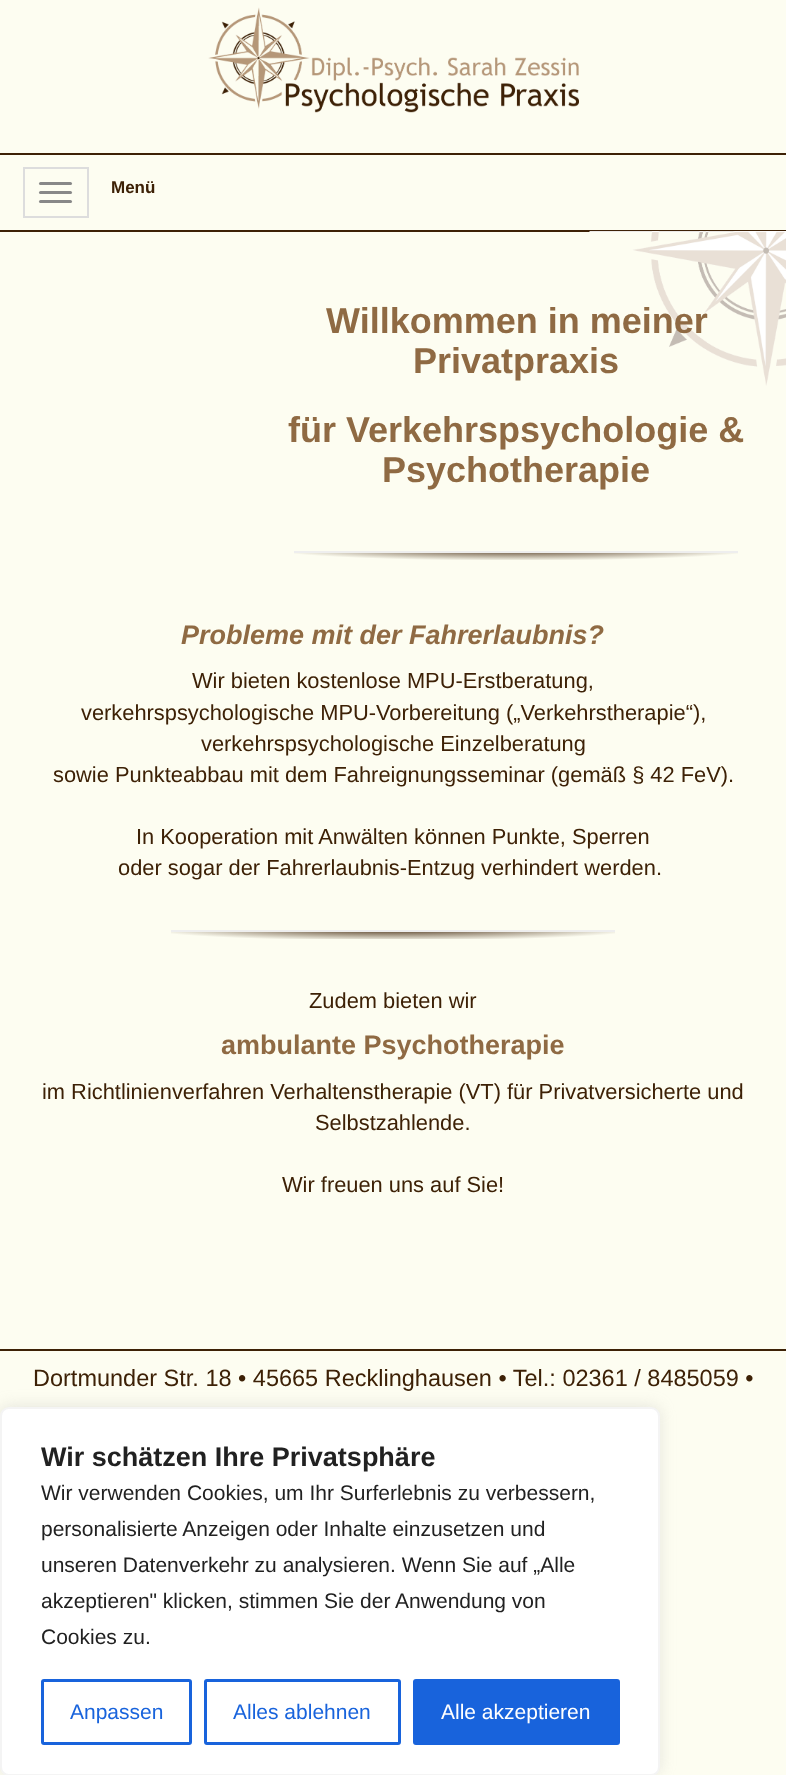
<svg xmlns="http://www.w3.org/2000/svg" width="786" height="1775">
<style>
.a{font:bold 17px Liberation Sans;fill:#3d2106}
.b{font:bold 36px Liberation Sans;fill:#8f6a43}
.c{font:italic bold 27px Liberation Sans;fill:#8f6a43}
.d{font:21.85px Liberation Sans;fill:#3d2106}
.e{font:bold 27px Liberation Sans;fill:#8f6a43}
.f{font:23.5px Liberation Sans;fill:#3d2106}
.g{font:bold 27px Liberation Sans;fill:#212121}
.h{font:21px Liberation Sans;fill:#212121}
.i{font:21px Liberation Sans;fill:#1863dc}
.j{font:21px Liberation Sans;fill:#fff}
</style>
<defs>
<radialGradient id="g1" gradientUnits="userSpaceOnUse" cx="0" cy="0" r="1" gradientTransform="matrix(314 0 0 16 516 548)"><stop offset="0" stop-color="#3d2106"/><stop offset="0.8" stop-color="#fdfdf1"/></radialGradient>
<radialGradient id="g2" gradientUnits="userSpaceOnUse" cx="0" cy="0" r="1" gradientTransform="matrix(314 0 0 16 393 928)"><stop offset="0" stop-color="#3d2106"/><stop offset="0.8" stop-color="#fdfdf1"/></radialGradient>
</defs>
<rect width="100%" height="100%" fill="#fdfdf1"/>
<image href="1.png" x="208" y="7" width="371" height="106"/>
<path fill="#3d2106" d="M0 153h786v2H0z"/>
<path fill="#3d2106" d="M0 230h786v2H0z"/>
<path fill="none" stroke="#ddd" stroke-width="2" d="M24 168h64v49H24z"/>
<rect fill="#888" x="39" y="182" width="33" height="3" rx="1.5"/>
<rect fill="#888" x="39" y="191" width="33" height="3" rx="1.5"/>
<rect fill="#888" x="39" y="200" width="33" height="3" rx="1.5"/>
<image href="2.png" x="589" y="231" width="197" height="155"/>
<path fill="url(#g1)" d="M294 553h444v7H294z"/>
<path fill="#eee" d="M294 551h444v2H294z"/>
<path fill="url(#g2)" d="M171 932h444v7H171z"/>
<path fill="#eee" d="M171 930h444v2H171z"/>
<path fill="#3d2106" d="M0 1349h786v2H0z"/>
<rect fill="#acabab4d" filter="blur(7.5px)" y="1406" width="660" height="369" rx="9"/>
<rect fill="#fff" stroke="#f4f4f4" stroke-width="2" x="1" y="1408" width="658" height="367" rx="8"/>
<rect fill="none" stroke="#1863dc" stroke-width="3" x="42.5" y="1680.5" width="148" height="63" rx="1.5"/>
<rect fill="none" stroke="#1863dc" stroke-width="3" x="205.5" y="1680.5" width="194" height="63" rx="1.5"/>
<rect fill="#1863dc" stroke="#1863dc" stroke-width="3" x="414.5" y="1680.5" width="204" height="63" rx="1.5"/>
<text class="a" x="111" y="193">Menü</text>
<text class="b" x="326" y="333">Willkommen in meiner</text>
<text class="b" x="413" y="373">Privatpraxis</text>
<text class="b" x="288" y="442">für Verkehrspsychologie &amp;</text>
<text class="b" x="382" y="482">Psychotherapie</text>
<text class="c" x="181" y="644">Probleme mit der Fahrerlaubnis?</text>
<text class="d" x="192" y="688">Wir bieten kostenlose MPU-Erstberatung,</text>
<text class="d" x="81" y="720">verkehrspsychologische MPU-Vorbereitung („Verkehrstherapie“),</text>
<text class="d" x="201" y="751">verkehrspsychologische Einzelberatung</text>
<text class="d" x="53" y="782">sowie Punkteabbau mit dem Fahreignungsseminar (gemäß § 42 FeV).</text>
<text class="d" x="136" y="844">In Kooperation mit Anwälten können Punkte, Sperren</text>
<text class="d" x="118" y="875">oder sogar der Fahrerlaubnis-Entzug verhindert werden.</text>
<text class="d" x="309" y="1008">Zudem bieten wir</text>
<text class="e" x="221" y="1054">ambulante Psychotherapie</text>
<text class="d" x="42" y="1099">im Richtlinienverfahren Verhaltenstherapie (VT) für Privatversicherte und</text>
<text class="d" x="315" y="1130">Selbstzahlende.</text>
<text class="d" x="282" y="1192">Wir freuen uns auf Sie!</text>
<text class="f" x="33" y="1386">Dortmunder Str. 18 • 45665 Recklinghausen • Tel.: 02361 / 8485059 •</text>
<text class="g" x="41" y="1466">Wir schätzen Ihre Privatsphäre</text>
<text class="h" x="41" y="1500">Wir verwenden Cookies, um Ihr Surferlebnis zu verbessern,</text>
<text class="h" x="41" y="1536">personalisierte Anzeigen oder Inhalte einzusetzen und</text>
<text class="h" x="41" y="1572">unseren Datenverkehr zu analysieren. Wenn Sie auf „Alle</text>
<text class="h" x="41" y="1608">akzeptieren" klicken, stimmen Sie der Anwendung von</text>
<text class="h" x="41" y="1644">Cookies zu.</text>
<text class="i" x="70" y="1719">Anpassen</text>
<text class="i" x="233" y="1719">Alles ablehnen</text>
<text class="j" x="441" y="1719">Alle akzeptieren</text>
</svg>
